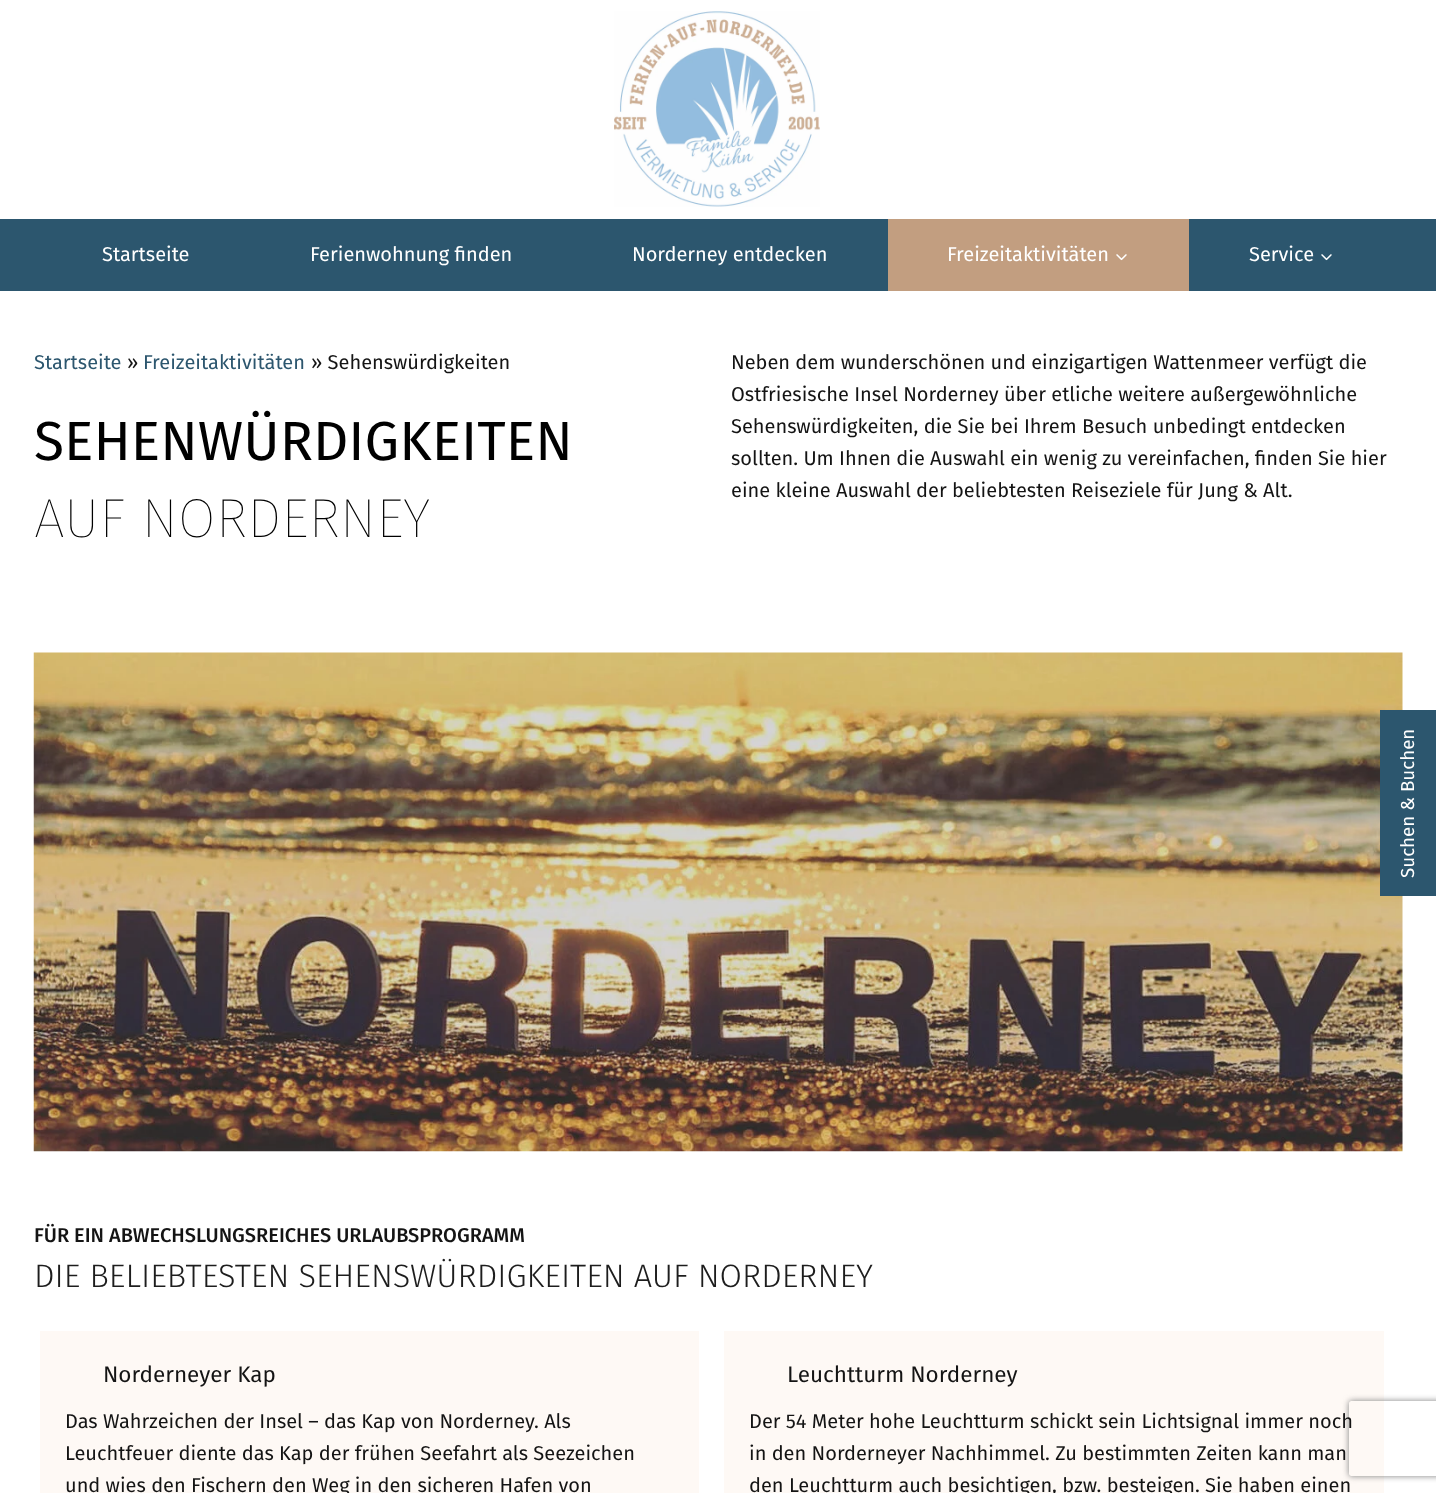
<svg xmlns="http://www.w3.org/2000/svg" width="1436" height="1493">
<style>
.a{font:20px Fira Sans;fill:#fff}
.b{font:20px Fira Sans;fill:#2c566e}
.c{font:20px Fira Sans;fill:#141414}
.d{font:55px Fira Sans;fill:#000}
.e{font:100 55px Fira Sans;fill:#000}
.f{font:500 20px Fira Sans;fill:#141414}
.g{font:300 32.5px Fira Sans;fill:#1d1d1d}
.h{font:22.5px Fira Sans;fill:#141414}
.i{font:18.75px Fira Sans;fill:#fff}
</style>
<defs>
<clipPath id="clip1"><path d="M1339 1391h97v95h-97zm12.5 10h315c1.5 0 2.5 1 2.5 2.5v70c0 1.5-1 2.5-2.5 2.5h-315c-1.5 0-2.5-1-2.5-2.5v-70c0-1.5 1-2.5 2.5-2.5z" clip-rule="evenodd"/></clipPath>
</defs>
<rect width="100%" height="100%" fill="#fff"/>
<image href="1.png" x="614" y="11" width="206" height="196"/>
<path fill="#2c566e" d="M0 219h1436v72H0z"/>
<path fill="#c29e80" d="M888 219h301v72H888z"/>
<image href="2.png" x="1116" y="254" width="11" height="7"/>
<image href="3.png" x="1321" y="254" width="11" height="7"/>
<image href="4.png" x="33" y="652" width="1370" height="500"/>
<path fill="#fef9f5" d="M40 1331h659v162H40z"/>
<path fill="#fef9f5" d="M724 1331h660v162H724z"/>
<path fill="#2c566e" d="M1380 710h56v186H1380z"/>
<g clip-path="url(#clip1)">
<rect fill="#808080" filter="blur(3px)" x="1349" y="1401" width="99" height="75" rx="2.5"/>
</g>
<text class="a" x="102" y="261">Startseite</text>
<text class="a" x="310" y="261">Ferienwohnung finden</text>
<text class="a" x="632" y="261">Norderney entdecken</text>
<text class="a" x="947" y="261">Freizeitaktivitäten</text>
<text class="a" x="1249" y="261">Service</text>
<text class="b" x="34" y="369">Startseite</text>
<text class="c" x="127" y="369">»</text>
<text class="b" x="143" y="369">Freizeitaktivitäten</text>
<text class="c" x="311" y="369">» Sehenswürdigkeiten</text>
<text class="d" x="34" y="460">SEHENWÜRDIGKEITEN</text>
<text class="e" x="34" y="537">AUF NORDERNEY</text>
<text class="c" x="731" y="369">Neben dem wunderschönen und einzigartigen Wattenmeer verfügt die</text>
<text class="c" x="731" y="401">Ostfriesische Insel Norderney über etliche weitere außergewöhnliche</text>
<text class="c" x="731" y="433">Sehenswürdigkeiten, die Sie bei Ihrem Besuch unbedingt entdecken</text>
<text class="c" x="731" y="465">sollten. Um Ihnen die Auswahl ein wenig zu vereinfachen, finden Sie hier</text>
<text class="c" x="731" y="497">eine kleine Auswahl der beliebtesten Reiseziele für Jung &amp; Alt.</text>
<text class="f" x="34" y="1242">FÜR EIN ABWECHSLUNGSREICHES URLAUBSPROGRAMM</text>
<text class="g" x="34" y="1287">DIE BELIEBTESTEN SEHENSWÜRDIGKEITEN AUF NORDERNEY</text>
<text class="h" x="103" y="1382">Norderneyer Kap</text>
<text class="c" x="65" y="1428">Das Wahrzeichen der Insel – das Kap von Norderney. Als</text>
<text class="c" x="65" y="1460">Leuchtfeuer diente das Kap der frühen Seefahrt als Seezeichen</text>
<text class="c" x="65" y="1492">und wies den Fischern den Weg in den sicheren Hafen von</text>
<text class="h" x="787" y="1382">Leuchtturm Norderney</text>
<text class="c" x="749" y="1428">Der 54 Meter hohe Leuchtturm schickt sein Lichtsignal immer noch</text>
<text class="c" x="749" y="1460">in den Norderneyer Nachhimmel. Zu bestimmten Zeiten kann man</text>
<text class="c" x="749" y="1492">den Leuchtturm auch besichtigen, bzw. besteigen. Sie haben einen</text>
<text class="i" x="1414" y="878" transform="rotate(-90 1414 878)">Suchen &amp; Buchen</text>
</svg>
